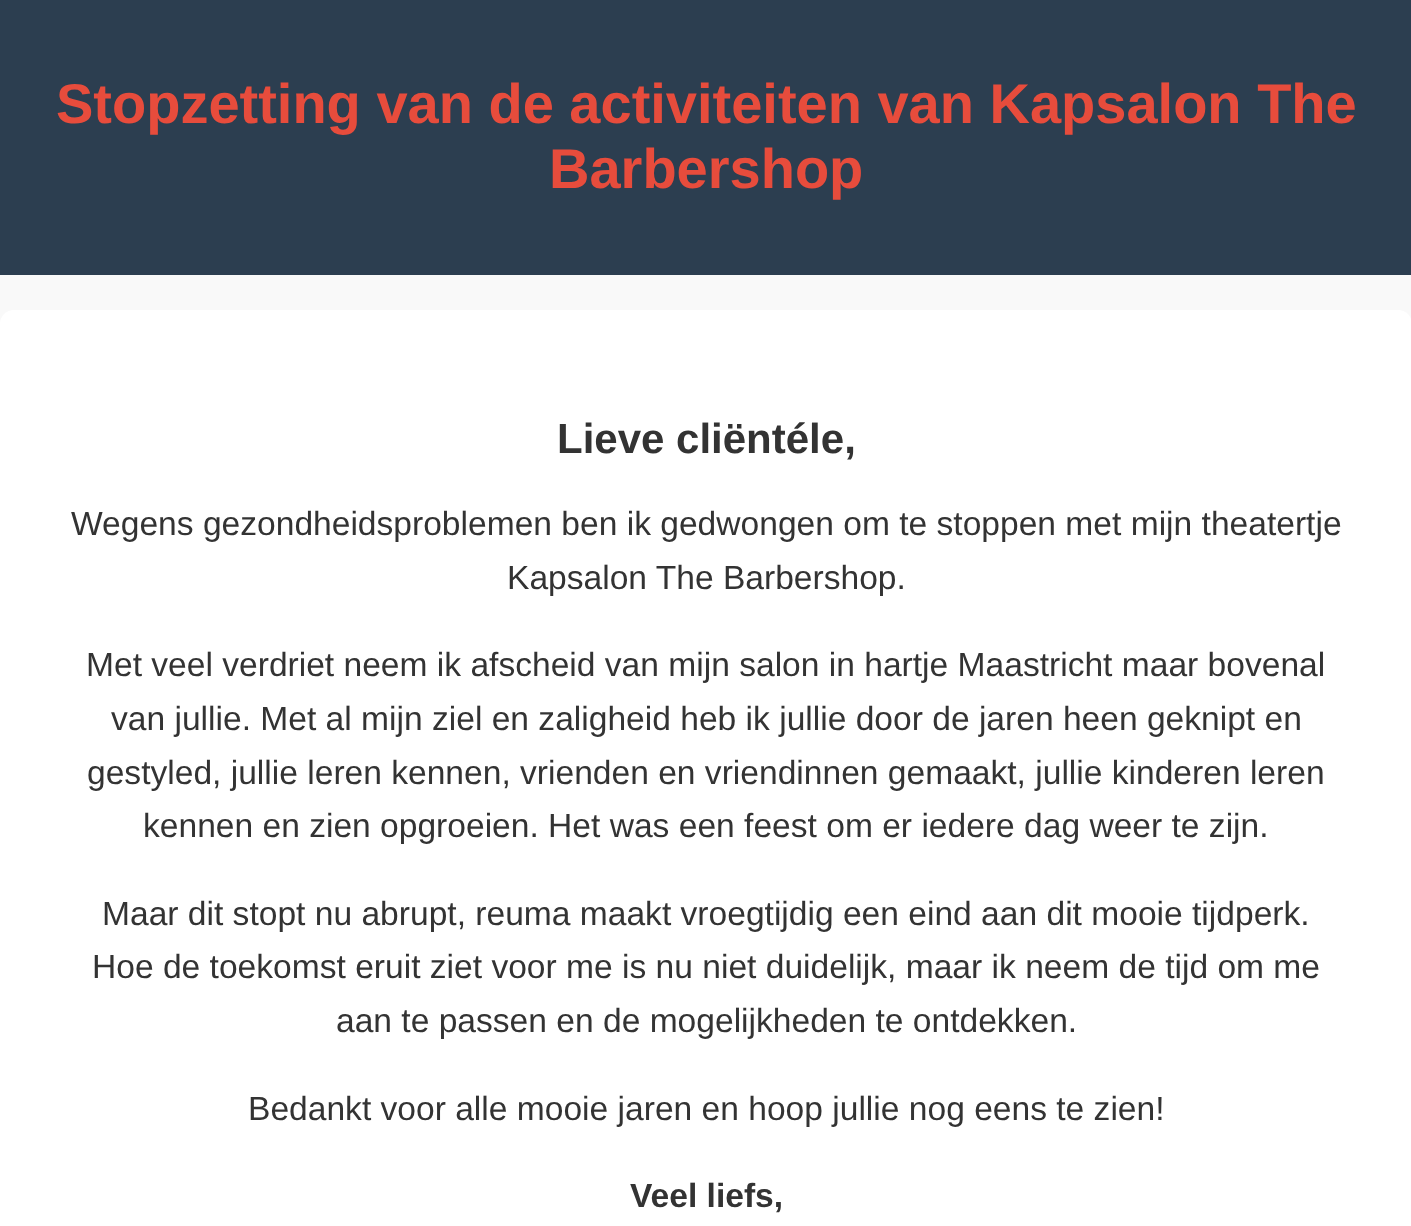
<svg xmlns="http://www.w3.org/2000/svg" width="1411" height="1226">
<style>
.a{font:bold 56px Liberation Sans;fill:#e74c3c}
.b{font:bold 42px Liberation Sans;fill:#333}
.c{font:33.6px Liberation Sans;fill:#333}
.d{font:bold 33.6px Liberation Sans;fill:#333}
</style>
<rect width="100%" height="100%" fill="#f9f9f9"/>
<path fill="#2c3e50" d="M0 0h1411v275H0z"/>
<rect fill="#fff" y="310" width="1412" height="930" rx="14"/>
<text class="a" x="56" y="123">Stopzetting van de activiteiten van Kapsalon The</text>
<text class="a" x="549" y="188">Barbershop</text>
<text class="b" x="557" y="453">Lieve cliëntéle,</text>
<text class="c" x="71" y="535">Wegens gezondheidsproblemen ben ik gedwongen om te stoppen met mijn theatertje</text>
<text class="c" x="507" y="589">Kapsalon The Barbershop.</text>
<text class="c" x="86" y="676">Met veel verdriet neem ik afscheid van mijn salon in hartje Maastricht maar bovenal</text>
<text class="c" x="111" y="730">van jullie. Met al mijn ziel en zaligheid heb ik jullie door de jaren heen geknipt en</text>
<text class="c" x="87" y="784">gestyled, jullie leren kennen, vrienden en vriendinnen gemaakt, jullie kinderen leren</text>
<text class="c" x="143" y="837">kennen en zien opgroeien. Het was een feest om er iedere dag weer te zijn.</text>
<text class="c" x="102" y="925">Maar dit stopt nu abrupt, reuma maakt vroegtijdig een eind aan dit mooie tijdperk.</text>
<text class="c" x="92" y="978">Hoe de toekomst eruit ziet voor me is nu niet duidelijk, maar ik neem de tijd om me</text>
<text class="c" x="336" y="1032">aan te passen en de mogelijkheden te ontdekken.</text>
<text class="c" x="248" y="1120">Bedankt voor alle mooie jaren en hoop jullie nog eens te zien!</text>
<text class="d" x="630" y="1207">Veel liefs,</text>
</svg>
